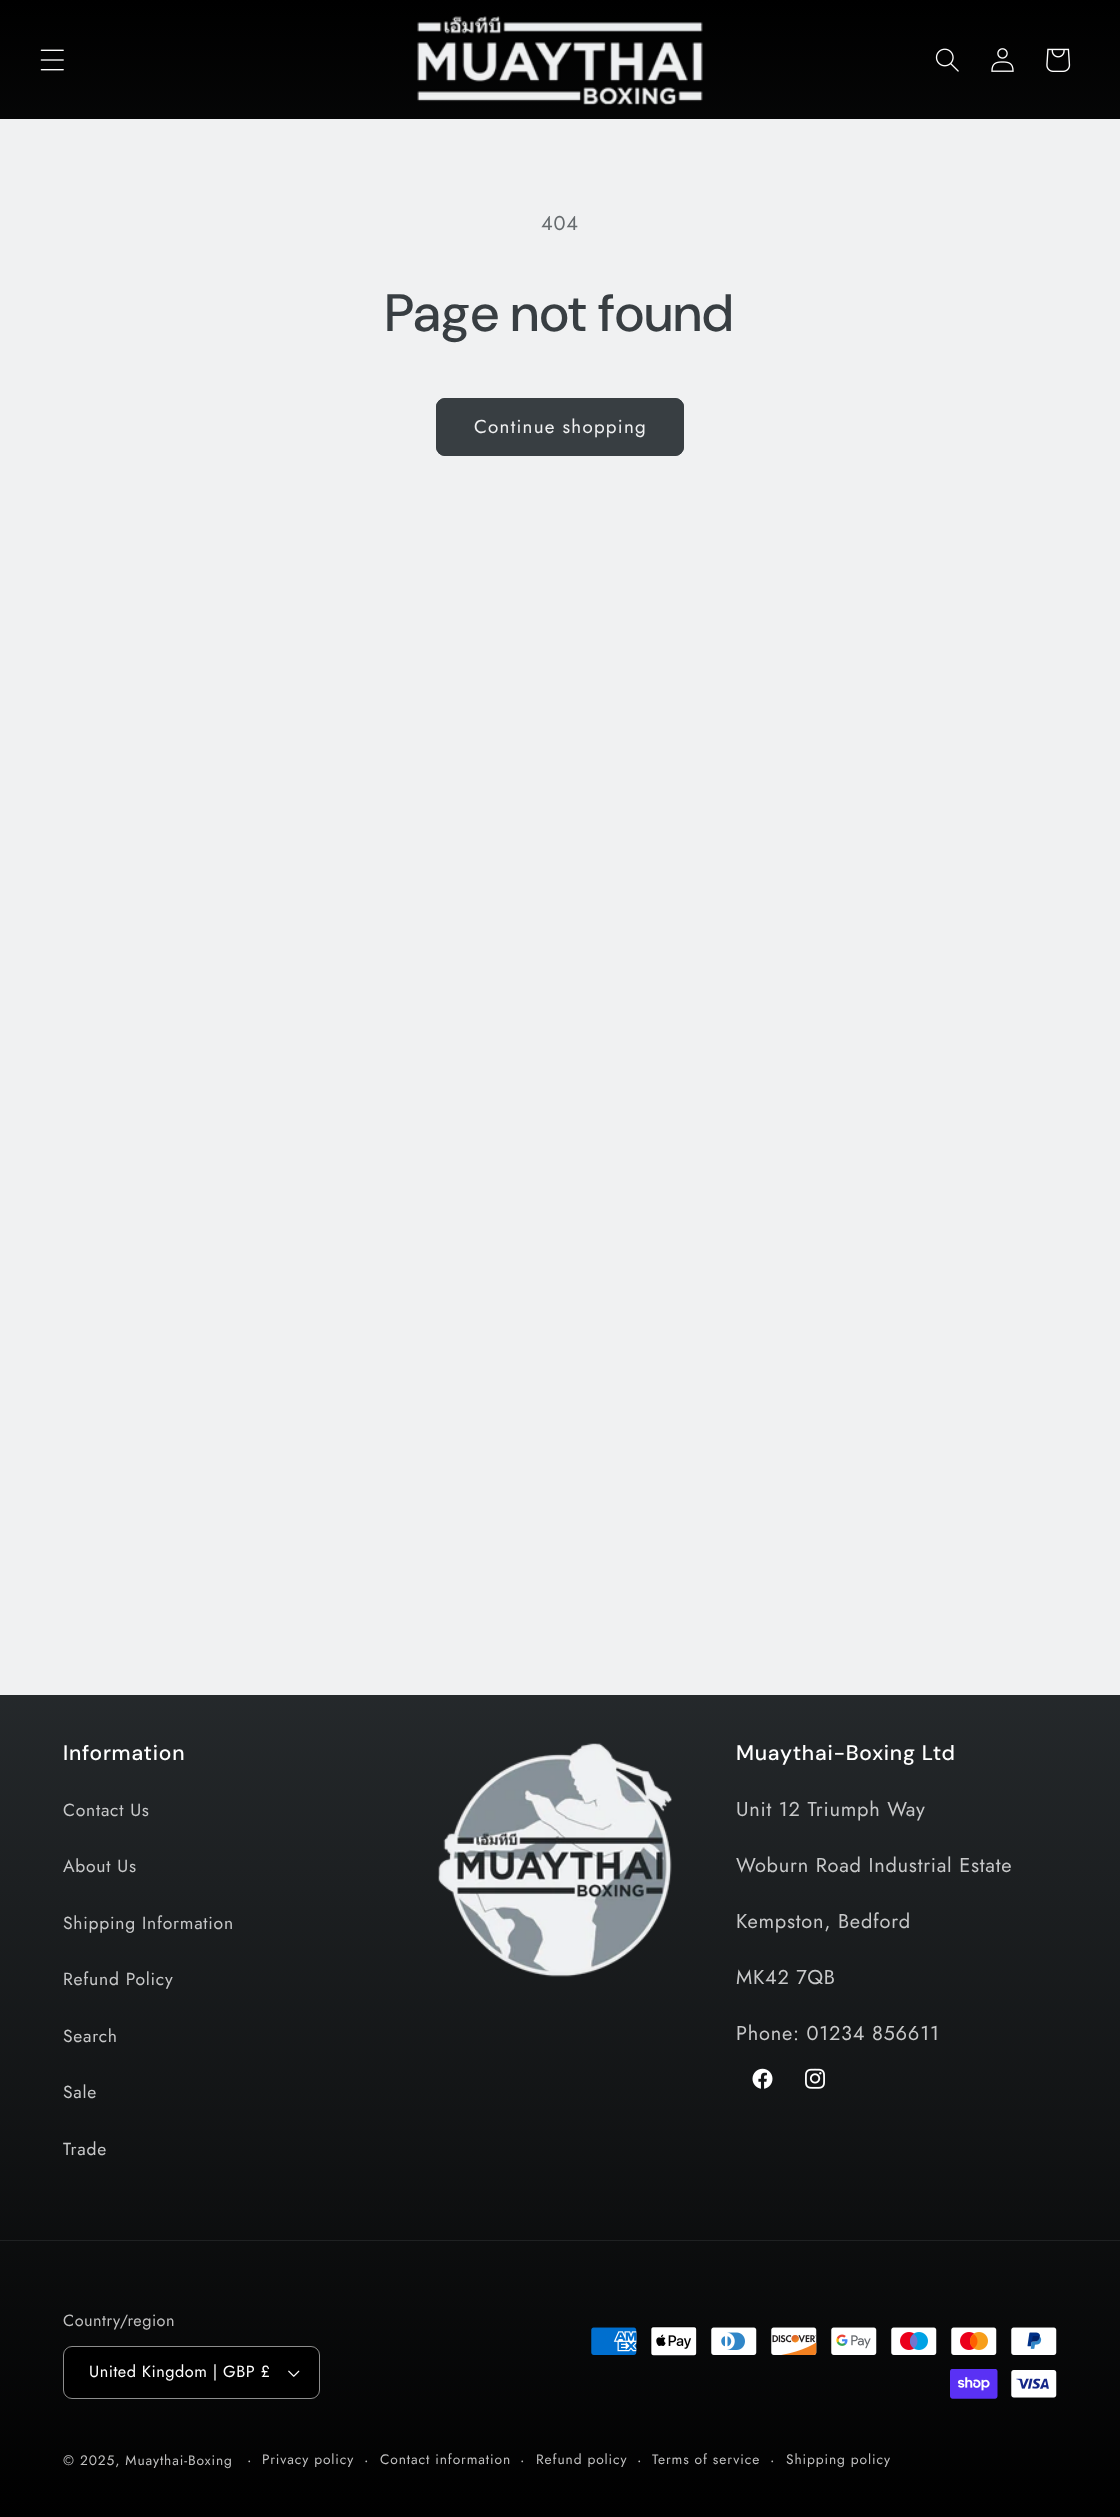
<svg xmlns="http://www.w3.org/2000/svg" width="1120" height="2517">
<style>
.a{font:20px Jost;letter-spacing:0.75px;fill:#666b6e}
.b{font:500 52.5px DM Sans;letter-spacing:0.75px;fill:#383e42}
.c{font:18.75px Jost;letter-spacing:1.25px;fill:#f0f1f2}
.d{font:500 21px 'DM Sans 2';letter-spacing:0.75px;fill:#fff}
.e{font:17.5px Jost;letter-spacing:0.75px;fill:#c7c8c9}
.f{font:20px Jost;letter-spacing:0.75px;fill:#c7c8c9}
.g{font:16.25px Jost;letter-spacing:0.5px;fill:#c0c0c0}
.h{font:16.25px Jost;letter-spacing:0.5px;fill:#fff}
.i{font:13.75px Jost;letter-spacing:0.9px;fill:#c0c0c0}
.j{font:15px Jost;letter-spacing:0.9px;fill:#c0c0c0}
</style>
<defs>
<linearGradient id="g1" gradientUnits="userSpaceOnUse" x1="560" y1="0" x2="560" y2="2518"><stop offset="0" stop-color="#000"/><stop offset="0.5" stop-color="#383e42"/><stop offset="1" stop-color="#000"/></linearGradient>
</defs>
<rect width="100%" height="100%" fill="#f0f1f2"/>
<path fill="url(#g1)" d="M0 0h1120v119H0z"/>
<image href="1.png" x="40" y="49" width="24" height="22"/>
<image href="2.png" x="417" y="16" width="286" height="89"/>
<image href="3.png" x="935" y="48" width="24" height="24"/>
<image href="4.png" x="991" y="48" width="23" height="24"/>
<image href="5.png" x="1046" y="48" width="25" height="24"/>
<rect fill="#383e42" x="436" y="398" width="248" height="58" rx="9"/>
<rect fill="none" stroke="#383e42" x="436.5" y="398.5" width="247" height="57" rx="8.5"/>
<path fill="url(#g1)" d="M0 1695h1120v822H0z"/>
<image href="6.png" x="438" y="1743" width="235" height="234"/>
<image href="7.png" x="752" y="2068" width="21" height="21"/>
<image href="8.png" x="805" y="2068" width="20" height="21"/>
<path fill="#1f2122" d="M0 2240h1120v1H0z"/>
<rect fill="#000" x="63" y="2346" width="257" height="53" rx="9"/>
<image href="9.png" x="288" y="2370" width="12" height="7"/>
<rect fill="none" stroke="#ffffff8c" x="63.5" y="2346.5" width="256" height="52" rx="8.5"/>
<image href="10.png" x="591" y="2327" width="46" height="28"/>
<image href="11.png" x="650" y="2326" width="47" height="30"/>
<image href="12.png" x="711" y="2327" width="46" height="28"/>
<image href="13.png" x="771" y="2327" width="46" height="28"/>
<image href="14.png" x="831" y="2327" width="46" height="28"/>
<image href="15.png" x="891" y="2327" width="46" height="28"/>
<image href="16.png" x="951" y="2327" width="46" height="28"/>
<image href="17.png" x="1011" y="2327" width="46" height="28"/>
<image href="18.png" x="950" y="2369" width="48" height="30"/>
<image href="19.png" x="1011" y="2370" width="46" height="28"/>
<text class="a" x="541" y="230">404</text>
<text class="b" x="385" y="331">Page not found</text>
<text class="c" x="474" y="433">Continue shopping</text>
<text class="d" x="63" y="1760">Information</text>
<text class="e" x="63" y="1816">Contact Us</text>
<text class="e" x="63" y="1872">About Us</text>
<text class="e" x="63" y="1929">Shipping Information</text>
<text class="e" x="63" y="1985">Refund Policy</text>
<text class="e" x="63" y="2042">Search</text>
<text class="e" x="63" y="2098">Sale</text>
<text class="e" x="63" y="2155">Trade</text>
<text class="d" x="736" y="1760">Muaythai-Boxing Ltd</text>
<text class="f" x="736" y="1816">Unit 12 Triumph Way</text>
<text class="f" x="736" y="1872">Woburn Road Industrial Estate</text>
<text class="f" x="736" y="1928">Kempston, Bedford</text>
<text class="f" x="736" y="1984">MK42 7QB</text>
<text class="f" x="736" y="2040">Phone: 01234 856611</text>
<text class="g" x="63" y="2326">Country/region</text>
<text class="h" x="89" y="2377">United Kingdom | GBP £</text>
<text class="i" x="63" y="2465">© 2025, Muaythai-Boxing</text>
<text class="j" x="247" y="2465">·</text>
<text class="i" x="262" y="2464">Privacy policy</text>
<text class="j" x="364" y="2465">·</text>
<text class="i" x="380" y="2464">Contact information</text>
<text class="j" x="520" y="2465">·</text>
<text class="i" x="536" y="2464">Refund policy</text>
<text class="j" x="637" y="2465">·</text>
<text class="i" x="652" y="2464">Terms of service</text>
<text class="j" x="770" y="2465">·</text>
<text class="i" x="786" y="2464">Shipping policy</text>
</svg>
